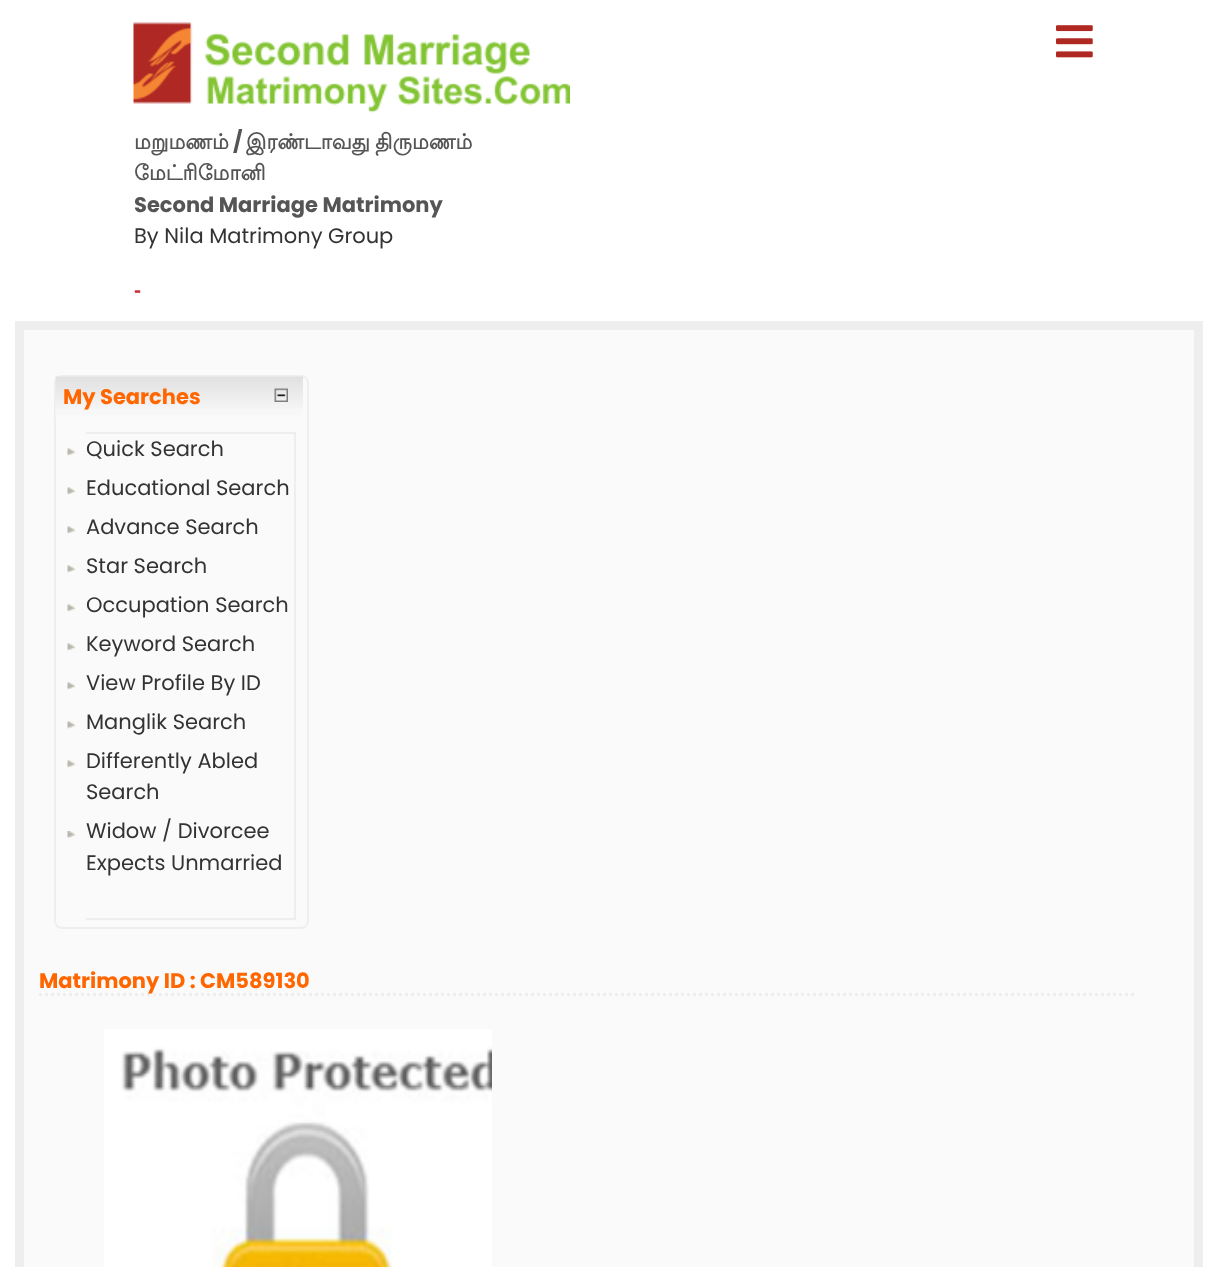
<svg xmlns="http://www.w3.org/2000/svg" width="1217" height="1267">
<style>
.a{font:bold 21px Lohit Tamil;fill:#555}
.b{font:bold 21px Poppins;fill:#555}
.c{font:21px Poppins;fill:#333}
.d{font:bold 21px Liberation Sans;fill:#cd2b3a}
.e{font:bold 21px Poppins;fill:#f60}
</style>
<rect width="100%" height="100%" fill="#fff"/>
<image href="1.png" x="1056" y="25" width="37" height="33"/>
<image href="2.png" x="133" y="22" width="437" height="91"/>
<path fill="#fafafa" stroke="#eee" stroke-width="9" d="M19.5 325.5h1179v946H19.5z"/>
<rect fill="none" stroke="#eee" stroke-width="2" x="55" y="376" width="253" height="552" rx="7"/>
<image href="3.png" x="55" y="376" width="248" height="41"/>
<image href="4.png" x="274" y="388" width="14" height="14"/>
<path fill="#eee" d="M86 432h210v2H86z"/>
<path fill="#eee" d="M294 432h2v488H294z"/>
<path fill="#eee" d="M86 918h210v2H86z"/>
<image href="5.png" x="67" y="448" width="8" height="8"/>
<image href="5.png" x="67" y="487" width="8" height="8"/>
<image href="5.png" x="67" y="526" width="8" height="8"/>
<image href="5.png" x="67" y="565" width="8" height="8"/>
<image href="5.png" x="67" y="604" width="8" height="8"/>
<image href="5.png" x="67" y="643" width="8" height="8"/>
<image href="5.png" x="67" y="682" width="8" height="8"/>
<image href="5.png" x="67" y="721" width="8" height="8"/>
<image href="5.png" x="67" y="760" width="8" height="8"/>
<image href="6.png" x="67" y="831" width="8" height="8"/>
<path fill="none" stroke="#eee" stroke-width="3" stroke-dasharray="3 3" d="M39 994.5h1095"/>
<image href="7.png" x="104" y="1029" width="388" height="238"/>
<text class="a" x="134" y="149">மறுமணம்</text>
<text class="b" x="233" y="149">/</text>
<text class="a" x="246" y="149" word-spacing="-1">இரண்டாவது திருமணம்</text>
<text class="a" x="134" y="180">மேட்ரிமோனி</text>
<text class="b" x="134" y="212">Second Marriage Matrimony</text>
<text class="c" x="134" y="243">By Nila Matrimony Group</text>
<text class="d" x="134" y="297">-</text>
<text class="e" x="63" y="404">My Searches</text>
<text class="c" x="86" y="456">Quick Search</text>
<text class="c" x="86" y="495">Educational Search</text>
<text class="c" x="86" y="534">Advance Search</text>
<text class="c" x="86" y="573">Star Search</text>
<text class="c" x="86" y="612">Occupation Search</text>
<text class="c" x="86" y="651">Keyword Search</text>
<text class="c" x="86" y="690">View Profile By ID</text>
<text class="c" x="86" y="729">Manglik Search</text>
<text class="c" x="86" y="768">Differently Abled</text>
<text class="c" x="86" y="799">Search</text>
<text class="c" x="86" y="838">Widow / Divorcee</text>
<text class="c" x="86" y="870">Expects Unmarried</text>
<text class="e" x="39" y="988">Matrimony ID : CM589130</text>
</svg>
